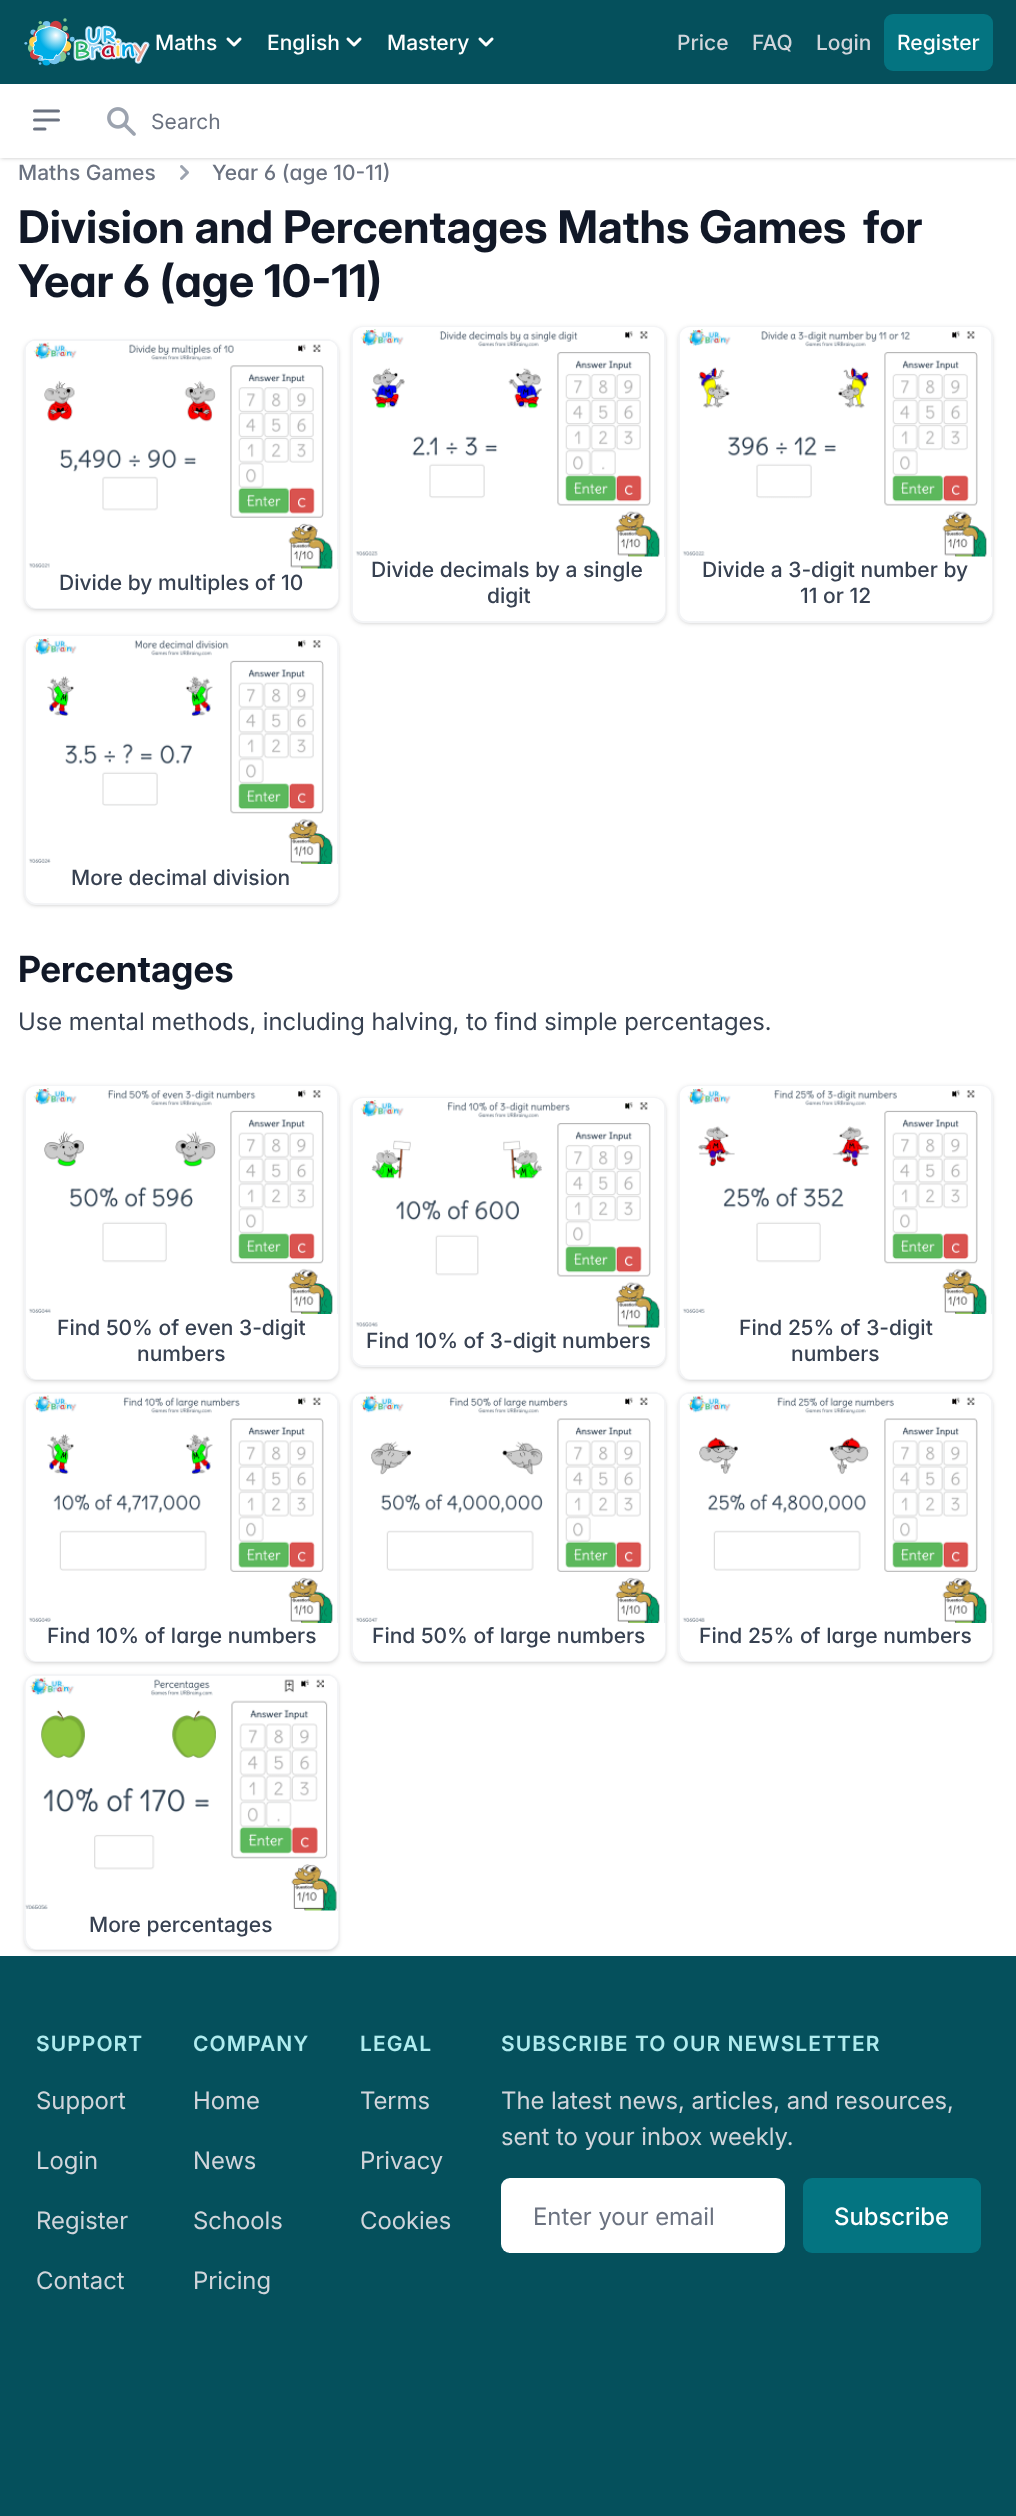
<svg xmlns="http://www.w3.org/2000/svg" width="1016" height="2516">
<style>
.a{font:500 21px Inter;fill:#fff}
.b{font:500 21px Inter;fill:#d1d5db}
.c{font:21px Inter;fill:#6b7280}
.d{font:500 21px Inter;fill:#6b7280}
.e{font:500 21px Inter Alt;fill:#6b7280}
.f{font:bold 45px Inter;fill:#111827}
.g{font:bold 45px Inter Alt;fill:#111827}
.h{font:500 21px Inter;fill:#374151}
.i{font:bold 36px 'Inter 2';fill:#111827}
.j{font:24px 'Inter 2';fill:#374151}
.k{font:500 21px Inter Alt;fill:#374151}
.l{font:600 21px Inter;letter-spacing:1.05px;fill:#afecef}
.m{font:24px 'Inter 2';fill:#d1d5db}
.n{font:24px 'Inter 2';fill:#6b7280}
.o{font:500 24px 'Inter 2';fill:#fff}
</style>
<defs>
<clipPath id="clip1"><rect x="26" y="341" width="312" height="267" rx="11"/></clipPath>
<clipPath id="clip2"><rect x="26" y="1086" width="312" height="293" rx="11"/></clipPath>
<clipPath id="clip3"><rect x="680" y="1086" width="312" height="293" rx="11"/></clipPath>
<clipPath id="clip4"><rect x="26" y="1394" width="312" height="267" rx="11"/></clipPath>
<clipPath id="clip5"><rect x="353" y="1394" width="312" height="267" rx="11"/></clipPath>
<clipPath id="clip6"><rect x="680" y="1394" width="312" height="267" rx="11"/></clipPath>
<clipPath id="clip7"><rect x="26" y="1676" width="312" height="273" rx="11"/></clipPath>
</defs>
<rect width="100%" height="100%" fill="#fff"/>
<path fill="#0000001a" filter="blur(1.5px)" d="M2 87h1014v71H2z"/>
<path fill="#0000001a" filter="blur(2px)" d="M0 86h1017v73H0z"/>
<path fill="#05505c" d="M0 0h1016v84H0z"/>
<image href="1.png" x="24" y="18" width="126" height="48"/>
<image href="2.png" x="226" y="37" width="16" height="10"/>
<image href="2.png" x="346" y="37" width="16" height="10"/>
<image href="2.png" x="478" y="37" width="16" height="10"/>
<rect fill="#047481" x="884" y="14" width="109" height="57" rx="9"/>
<path fill="#fff" d="M0 84h1016v74H0z"/>
<path fill="none" stroke="#6b7280" stroke-width="3" stroke-linecap="round" stroke-linejoin="round" d="M34.5 111h24m-24 9h24m-24 9h10.5"/>
<image href="3.png" x="107" y="107" width="29" height="29"/>
<image href="4.png" x="180" y="165" width="9" height="15"/>
<rect fill="#0000001a" filter="blur(1.5px)" x="26" y="342" width="312" height="267" rx="11"/>
<rect fill="#0000001a" filter="blur(2px)" x="24" y="341" width="315" height="270" rx="12"/>
<rect fill="#fff" stroke="#f3f4f6" stroke-width="2" x="25" y="340" width="313" height="268" rx="11"/>
<image href="5.png" x="26" y="341" width="311" height="228"/>
<path fill="#fff" d="M26 569h312v28c0 6-5 11-11 11h-290c-6 0-11-5-11-11z"/>
<g clip-path="url(#clip1)">
<path fill="#fff" d="M26 606h312v2H26z"/>
</g>
<rect fill="#0000001a" filter="blur(1.5px)" x="353" y="329" width="312" height="294" rx="11"/>
<rect fill="#0000001a" filter="blur(2px)" x="351" y="327" width="315" height="297" rx="12"/>
<rect fill="#fff" stroke="#f3f4f6" stroke-width="2" x="352" y="327" width="313" height="295" rx="11"/>
<image href="6.png" x="353" y="327" width="311" height="230"/>
<path fill="#fff" d="M353 557h312v53c0 6-5 11-11 11h-290c-6 0-11-5-11-11z"/>
<rect fill="#0000001a" filter="blur(1.5px)" x="680" y="329" width="312" height="294" rx="11"/>
<rect fill="#0000001a" filter="blur(2px)" x="678" y="327" width="315" height="297" rx="12"/>
<rect fill="#fff" stroke="#f3f4f6" stroke-width="2" x="679" y="327" width="313" height="295" rx="11"/>
<image href="7.png" x="680" y="327" width="311" height="230"/>
<path fill="#fff" d="M680 557h312v53c0 6-5 11-11 11h-290c-6 0-11-5-11-11z"/>
<rect fill="#0000001a" filter="blur(1.5px)" x="26" y="638" width="312" height="267" rx="11"/>
<rect fill="#0000001a" filter="blur(2px)" x="24" y="636" width="315" height="270" rx="12"/>
<rect fill="#fff" stroke="#f3f4f6" stroke-width="2" x="25" y="636" width="313" height="268" rx="11"/>
<image href="8.png" x="26" y="636" width="311" height="228"/>
<path fill="#fff" d="M26 864h312v28c0 6-5 11-11 11h-290c-6 0-11-5-11-11z"/>
<rect fill="#0000001a" filter="blur(1.5px)" x="26" y="1088" width="312" height="292" rx="11"/>
<rect fill="#0000001a" filter="blur(2px)" x="24" y="1086" width="315" height="296" rx="12"/>
<rect fill="none" stroke="#f3f4f6" stroke-width="2" x="25" y="1086" width="313" height="293" rx="11"/>
<image href="9.png" x="26" y="1086" width="311" height="228"/>
<path fill="#fff" d="M26 1314h312v54c0 6-5 11-11 11h-290c-6 0-11-5-11-11z"/>
<g clip-path="url(#clip2)">
<path fill="#fff" d="M26 1377h312v2H26z"/>
</g>
<rect fill="#0000001a" filter="blur(1.5px)" x="353" y="1100" width="312" height="267" rx="11"/>
<rect fill="#0000001a" filter="blur(2px)" x="351" y="1098" width="315" height="270" rx="12"/>
<rect fill="#fff" stroke="#f3f4f6" stroke-width="2" x="352" y="1098" width="313" height="268" rx="11"/>
<image href="10.png" x="353" y="1098" width="311" height="230"/>
<path fill="#fff" d="M353 1328h312v26c0 6-5 11-11 11h-290c-6 0-11-5-11-11z"/>
<rect fill="#0000001a" filter="blur(1.5px)" x="680" y="1088" width="312" height="292" rx="11"/>
<rect fill="#0000001a" filter="blur(2px)" x="678" y="1086" width="315" height="296" rx="12"/>
<rect fill="none" stroke="#f3f4f6" stroke-width="2" x="679" y="1086" width="313" height="293" rx="11"/>
<image href="11.png" x="680" y="1086" width="311" height="228"/>
<path fill="#fff" d="M680 1314h312v54c0 6-5 11-11 11h-290c-6 0-11-5-11-11z"/>
<g clip-path="url(#clip3)">
<path fill="#fff" d="M680 1377h312v2H680z"/>
</g>
<rect fill="#0000001a" filter="blur(1.5px)" x="26" y="1395" width="312" height="267" rx="11"/>
<rect fill="#0000001a" filter="blur(2px)" x="24" y="1394" width="315" height="270" rx="12"/>
<rect fill="none" stroke="#f3f4f6" stroke-width="2" x="25" y="1393" width="313" height="268" rx="11"/>
<image href="12.png" x="26" y="1394" width="311" height="229"/>
<path fill="#fff" d="M26 1623h312v27c0 6-5 11-11 11h-290c-6 0-11-5-11-11z"/>
<g clip-path="url(#clip4)">
<path fill="#fff" d="M26 1659h312v2H26z"/>
</g>
<rect fill="#0000001a" filter="blur(1.5px)" x="353" y="1395" width="312" height="267" rx="11"/>
<rect fill="#0000001a" filter="blur(2px)" x="351" y="1394" width="315" height="270" rx="12"/>
<rect fill="none" stroke="#f3f4f6" stroke-width="2" x="352" y="1393" width="313" height="268" rx="11"/>
<image href="13.png" x="353" y="1394" width="311" height="229"/>
<path fill="#fff" d="M353 1623h312v27c0 6-5 11-11 11h-290c-6 0-11-5-11-11z"/>
<g clip-path="url(#clip5)">
<path fill="#fff" d="M353 1659h312v2H353z"/>
</g>
<rect fill="#0000001a" filter="blur(1.5px)" x="680" y="1395" width="312" height="267" rx="11"/>
<rect fill="#0000001a" filter="blur(2px)" x="678" y="1394" width="315" height="270" rx="12"/>
<rect fill="none" stroke="#f3f4f6" stroke-width="2" x="679" y="1393" width="313" height="268" rx="11"/>
<image href="14.png" x="680" y="1394" width="311" height="229"/>
<path fill="#fff" d="M680 1623h312v27c0 6-5 11-11 11h-290c-6 0-11-5-11-11z"/>
<g clip-path="url(#clip6)">
<path fill="#fff" d="M680 1659h312v2H680z"/>
</g>
<rect fill="#0000001a" filter="blur(1.5px)" x="26" y="1677" width="312" height="273" rx="11"/>
<path fill="#05505c" d="M0 1956h1016v560H0z"/>
<rect fill="#0000001a" filter="blur(2px)" x="24" y="1676" width="315" height="276" rx="12"/>
<rect fill="none" stroke="#f3f4f6" stroke-width="2" x="25" y="1675" width="313" height="274" rx="11"/>
<image href="15.png" x="25" y="1676" width="312" height="235"/>
<path fill="#fff" d="M26 1911h312v27c0 6-5 11-11 11h-290c-6 0-11-5-11-11z"/>
<g clip-path="url(#clip7)">
<path fill="#fff" d="M26 1947h312v2H26z"/>
</g>
<rect fill="#fff" x="501" y="2178" width="284" height="75" rx="9"/>
<rect fill="#047481" x="803" y="2178" width="178" height="75" rx="9"/>
<text class="a" x="155" y="50">Maths</text>
<text class="a" x="267" y="50">English</text>
<text class="a" x="387" y="50">Mastery</text>
<text class="b" x="677" y="50">Price</text>
<text class="b" x="752" y="50">FAQ</text>
<text class="b" x="816" y="50">Login</text>
<text class="a" x="897" y="50">Register</text>
<text class="c" x="151" y="129">Search</text>
<text class="d" x="18" y="180">Maths Games</text>
<text class="e" x="212" y="180">Year 6 (age 10-11)</text>
<text class="f" x="18" y="243">Division and Percentages Maths Games</text>
<text class="f" x="863" y="243">for</text>
<text class="g" x="18" y="297">Year 6 (age 10-11)</text>
<text class="h" x="59" y="590">Divide by multiples of 10</text>
<text class="h" x="371" y="577">Divide decimals by a single</text>
<text class="h" x="487" y="603">digit</text>
<text class="h" x="702" y="577">Divide a 3-digit number by</text>
<text class="h" x="800" y="603">11 or 12</text>
<text class="h" x="71" y="885">More decimal division</text>
<text class="i" x="18" y="982">Percentages</text>
<text class="j" x="18" y="1030">Use mental methods, including halving, to find simple percentages.</text>
<text class="h" x="57" y="1335">Find 50% of even 3-digit</text>
<text class="h" x="137" y="1361">numbers</text>
<text class="h" x="366" y="1348">Find 10% of 3-digit numbers</text>
<text class="h" x="739" y="1335">Find 25% of 3-digit</text>
<text class="h" x="791" y="1361">numbers</text>
<text class="k" x="47" y="1643">Find 10% of large numbers</text>
<text class="k" x="372" y="1643">Find 50% of large numbers</text>
<text class="k" x="699" y="1643">Find 25% of large numbers</text>
<text class="h" x="89" y="1932">More percentages</text>
<text class="l" x="36" y="2051">SUPPORT</text>
<text class="m" x="36" y="2109">Support</text>
<text class="m" x="36" y="2169">Login</text>
<text class="m" x="36" y="2229">Register</text>
<text class="m" x="36" y="2289">Contact</text>
<text class="l" x="193" y="2051">COMPANY</text>
<text class="m" x="193" y="2109">Home</text>
<text class="m" x="193" y="2169">News</text>
<text class="m" x="193" y="2229">Schools</text>
<text class="m" x="193" y="2289">Pricing</text>
<text class="l" x="360" y="2051">LEGAL</text>
<text class="m" x="360" y="2109">Terms</text>
<text class="m" x="360" y="2169">Privacy</text>
<text class="m" x="360" y="2229">Cookies</text>
<text class="l" x="501" y="2051">SUBSCRIBE TO OUR NEWSLETTER</text>
<text class="m" x="501" y="2109">The latest news, articles, and resources,</text>
<text class="m" x="501" y="2145">sent to your inbox weekly.</text>
<text class="n" x="533" y="2225">Enter your email</text>
<text class="o" x="834" y="2225">Subscribe</text>
</svg>
